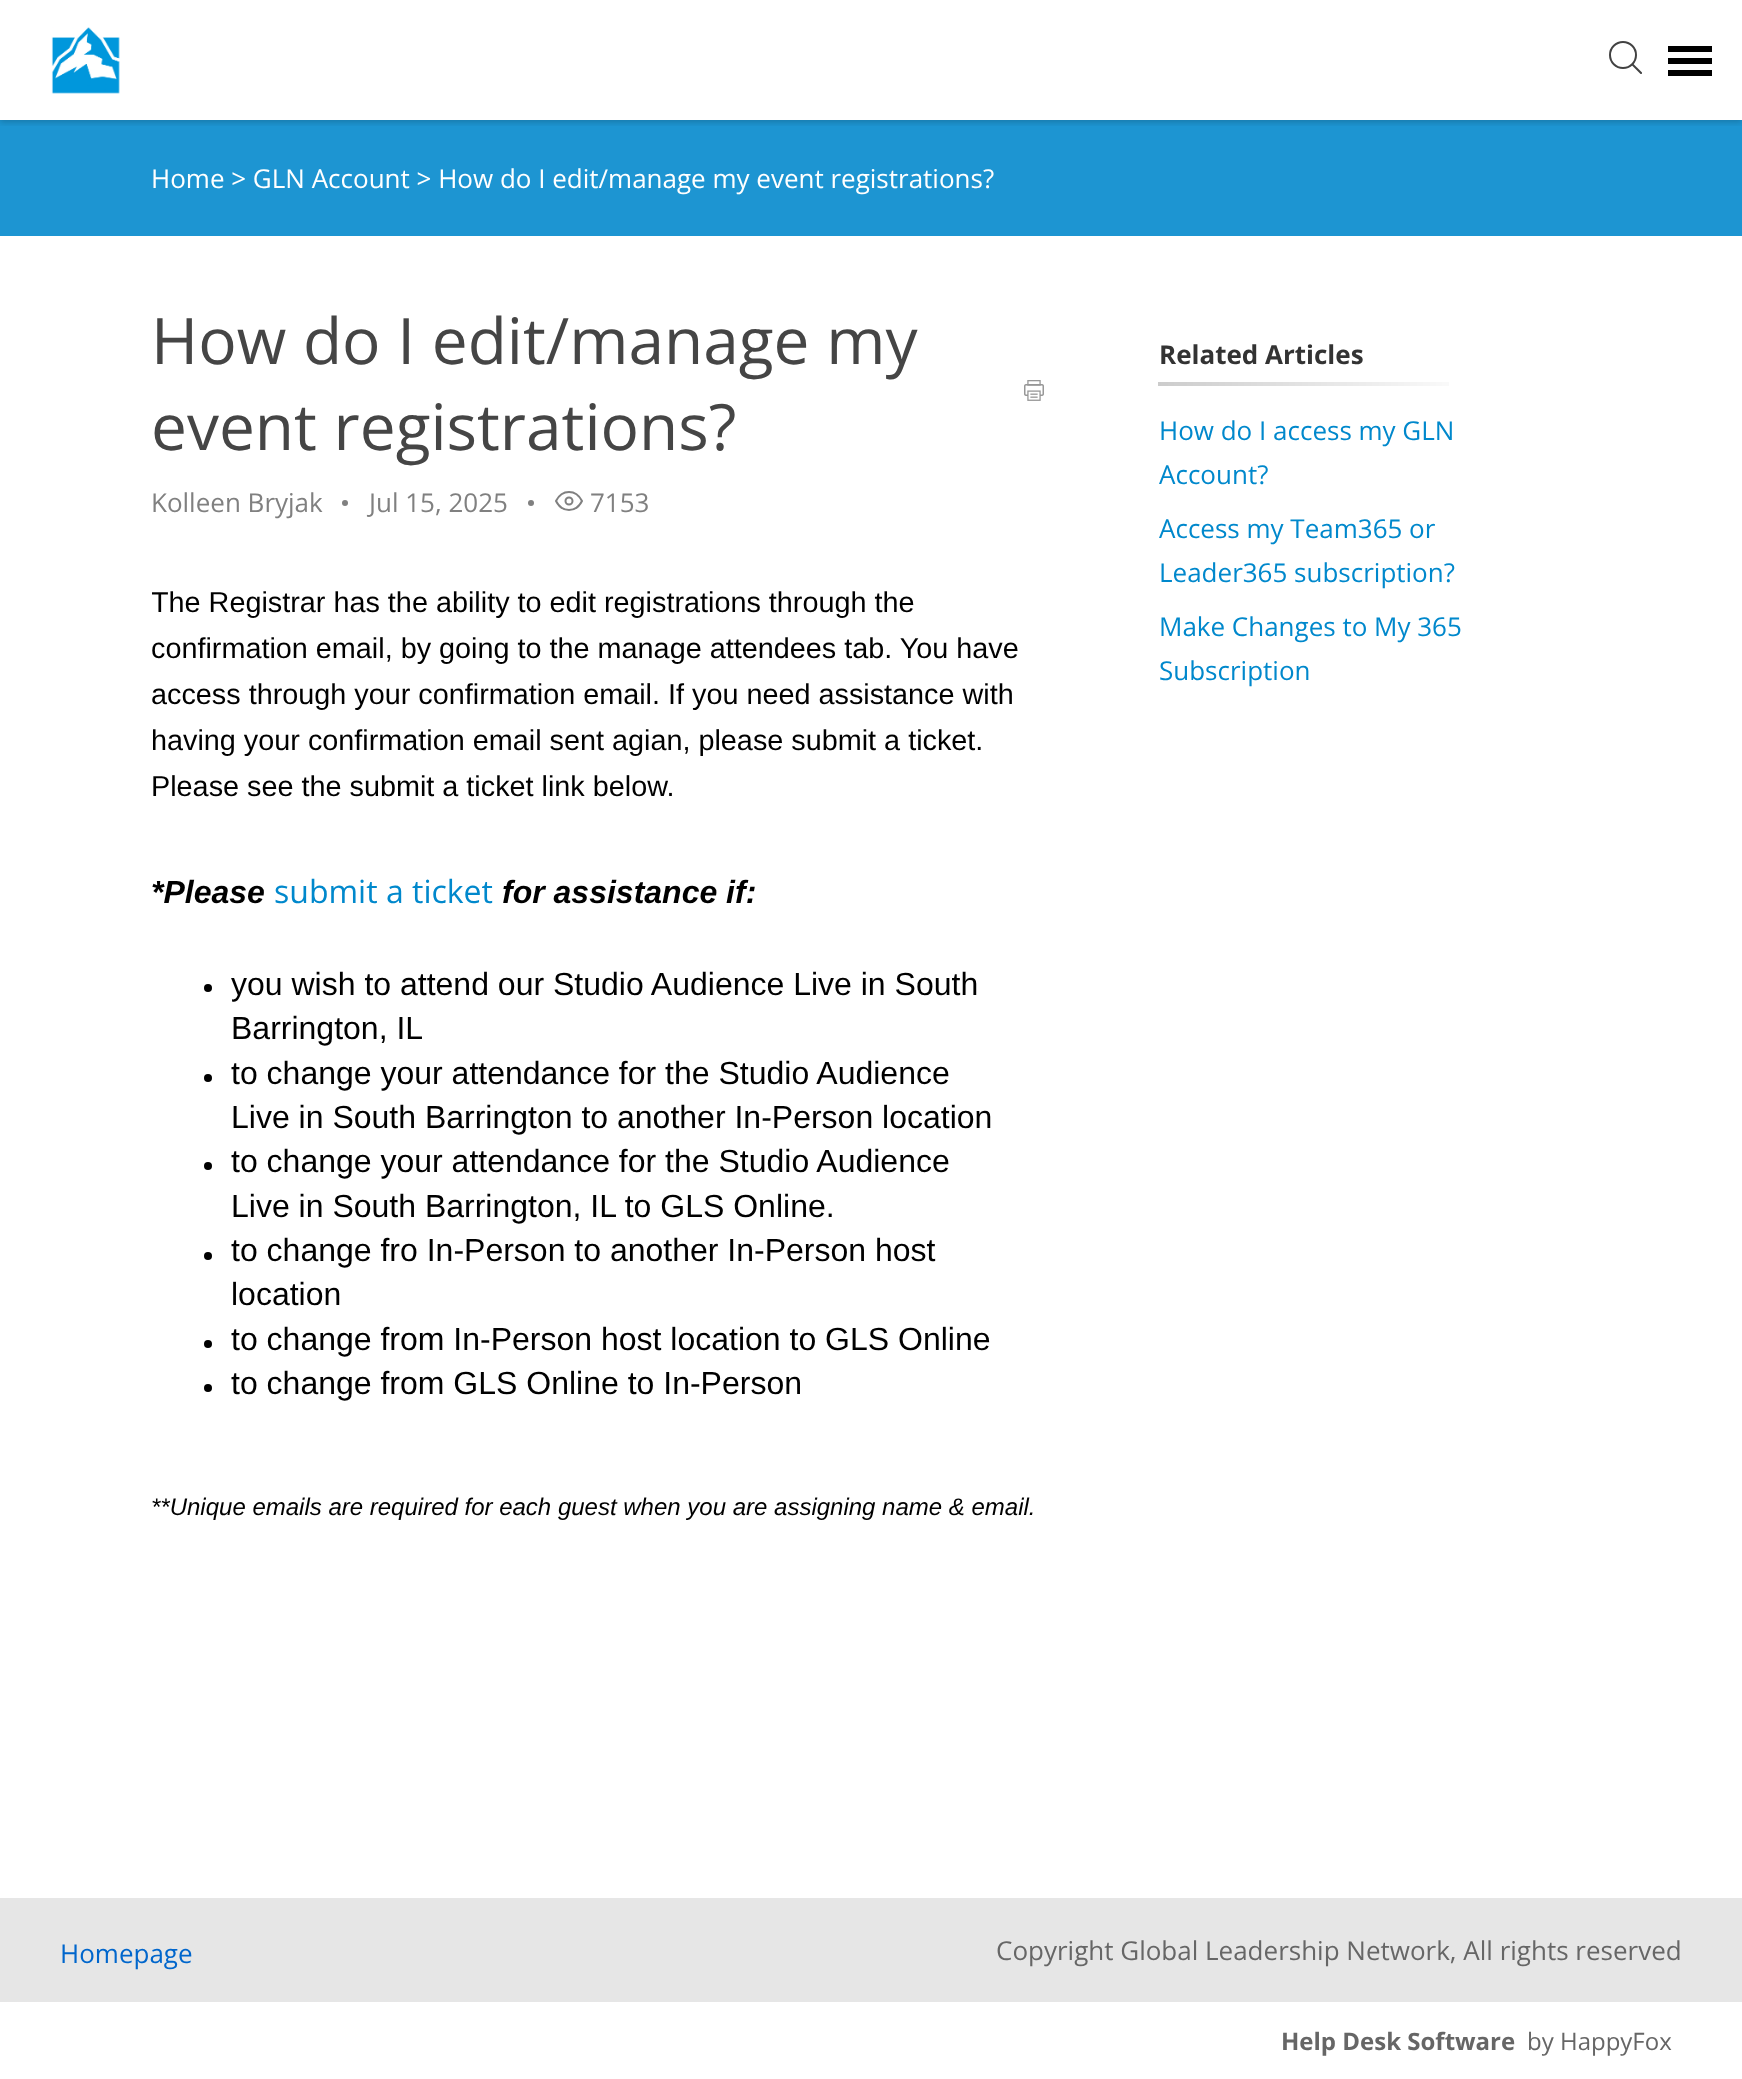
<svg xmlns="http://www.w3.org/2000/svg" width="1742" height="2079">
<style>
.a{font:26px Open Sans;fill:#fff}
.b{font:64px Open Sans;fill:#454545}
.c{font:26px Open Sans;fill:#808080}
.d{font:28.8px Liberation Sans;fill:#000}
.e{font:italic bold 32px Liberation Sans;fill:#000}
.f{font:32px Open Sans;fill:#08c}
.g{font:32px Liberation Sans;fill:#000}
.h{font:italic 24px Liberation Sans;fill:#000}
.i{font:bold 26px Open Sans;fill:#333}
.j{font:26px Open Sans;fill:#08c}
.k{font:26px Open Sans;fill:#06c}
.l{font:26px Open Sans;fill:#666}
.m{font:bold 24px Open Sans;fill:#666}
.n{font:24px Open Sans;fill:#666}
</style>
<defs>
<clipPath id="clip1"><path d="M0 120h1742v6H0z"/></clipPath>
<clipPath id="clip2"><path d="M1608 40h34v34H1608z"/></clipPath>
<clipPath id="clip3"><path d="M152 580h892v948H152z"/></clipPath>
</defs>
<rect width="100%" height="100%" fill="#fff"/>
<path fill="#1d95d2" d="M0 120h1742v116H0z"/>
<g clip-path="url(#clip1)">
<path fill="#00000033" filter="blur(3px)" d="M0 2h1742v120H0z"/>
</g>
<image href="1.png" x="51" y="27" width="69" height="67"/>
<circle fill="none" stroke="#424242" stroke-width="2" cx="1623" cy="55" r="13"/>
<g clip-path="url(#clip2)">
<path fill="none" stroke="#424242" stroke-width="2" stroke-linecap="square" d="M1633 65l8 8"/>
</g>
<path fill="#000" d="M1668 46h44v6H1668z"/>
<path fill="#000" d="M1668 58h44v6H1668z"/>
<path fill="#000" d="M1668 70h44v6H1668z"/>
<image href="2.png" x="1024" y="380" width="20" height="21"/>
<circle fill="#808080" cx="345" cy="503" r="3"/>
<circle fill="#808080" cx="531" cy="503" r="3"/>
<path fill="none" stroke="#808080" stroke-width="2" stroke-linecap="round" stroke-linejoin="round" d="M556 501c6-12 20-12 26 0c-6 12-20 12-26 0z"/>
<circle fill="none" stroke="#808080" stroke-width="2" cx="569" cy="501" r="3.5"/>
<circle fill="#000" cx="208" cy="988" r="4"/>
<circle fill="#000" cx="208" cy="1078" r="4"/>
<circle fill="#000" cx="208" cy="1166" r="4"/>
<circle fill="#000" cx="208" cy="1256" r="4"/>
<circle fill="#000" cx="208" cy="1344" r="4"/>
<circle fill="#000" cx="208" cy="1388" r="4"/>
<image href="3.png" x="1158" y="382" width="291" height="4"/>
<path fill="#e6e6e6" d="M0 1898h1742v104H0z"/>
<text class="a" x="151" y="188">Home &gt; GLN Account &gt; How do I edit/manage my event registrations?</text>
<text class="b" x="151" y="364">How do I edit/manage my</text>
<text class="b" x="151" y="450">event registrations?</text>
<text class="c" x="151" y="512">Kolleen Bryjak</text>
<text class="c" x="369" y="512">Jul 15, 2025</text>
<text class="c" x="590" y="512">7153</text>
<g clip-path="url(#clip3)">
<text class="d" x="151" y="612">The Registrar has the ability to edit registrations through the</text>
</g>
<text class="d" x="151" y="658">confirmation email, by going to the manage attendees tab. You have</text>
<text class="d" x="151" y="704">access through your confirmation email. If you need assistance with</text>
<text class="d" x="151" y="750">having your confirmation email sent agian, please submit a ticket.</text>
<text class="d" x="151" y="796">Please see the submit a ticket link below.</text>
<text class="e" x="151" y="903">*Please</text>
<text class="f" x="274" y="903">submit a ticket</text>
<text class="e" x="502" y="903">for assistance if:</text>
<text class="g" x="231" y="995">you wish to attend our Studio Audience Live in South</text>
<text class="g" x="231" y="1039">Barrington, IL</text>
<text class="g" x="231" y="1084">to change your attendance for the Studio Audience</text>
<text class="g" x="231" y="1128">Live in South Barrington to another In-Person location</text>
<text class="g" x="231" y="1172">to change your attendance for the Studio Audience</text>
<text class="g" x="231" y="1217">Live in South Barrington, IL to GLS Online.</text>
<text class="g" x="231" y="1261">to change fro In-Person to another In-Person host</text>
<text class="g" x="231" y="1305">location</text>
<text class="g" x="231" y="1350">to change from In-Person host location to GLS Online</text>
<text class="g" x="231" y="1394">to change from GLS Online to In-Person</text>
<text class="h" x="151" y="1515">**Unique emails are required for each guest when you are assigning name &amp; email.</text>
<text class="i" x="1159" y="364">Related Articles</text>
<text class="j" x="1159" y="440">How do I access my GLN</text>
<text class="j" x="1159" y="484">Account?</text>
<text class="j" x="1159" y="538">Access my Team365 or</text>
<text class="j" x="1159" y="582">Leader365 subscription?</text>
<text class="j" x="1159" y="636">Make Changes to My 365</text>
<text class="j" x="1159" y="680">Subscription</text>
<text class="k" x="60" y="1963">Homepage</text>
<text class="l" x="996" y="1960">Copyright Global Leadership Network, All rights reserved</text>
<text class="m" x="1281" y="2050">Help Desk Software</text>
<text class="n" x="1527" y="2050">by HappyFox</text>
</svg>
